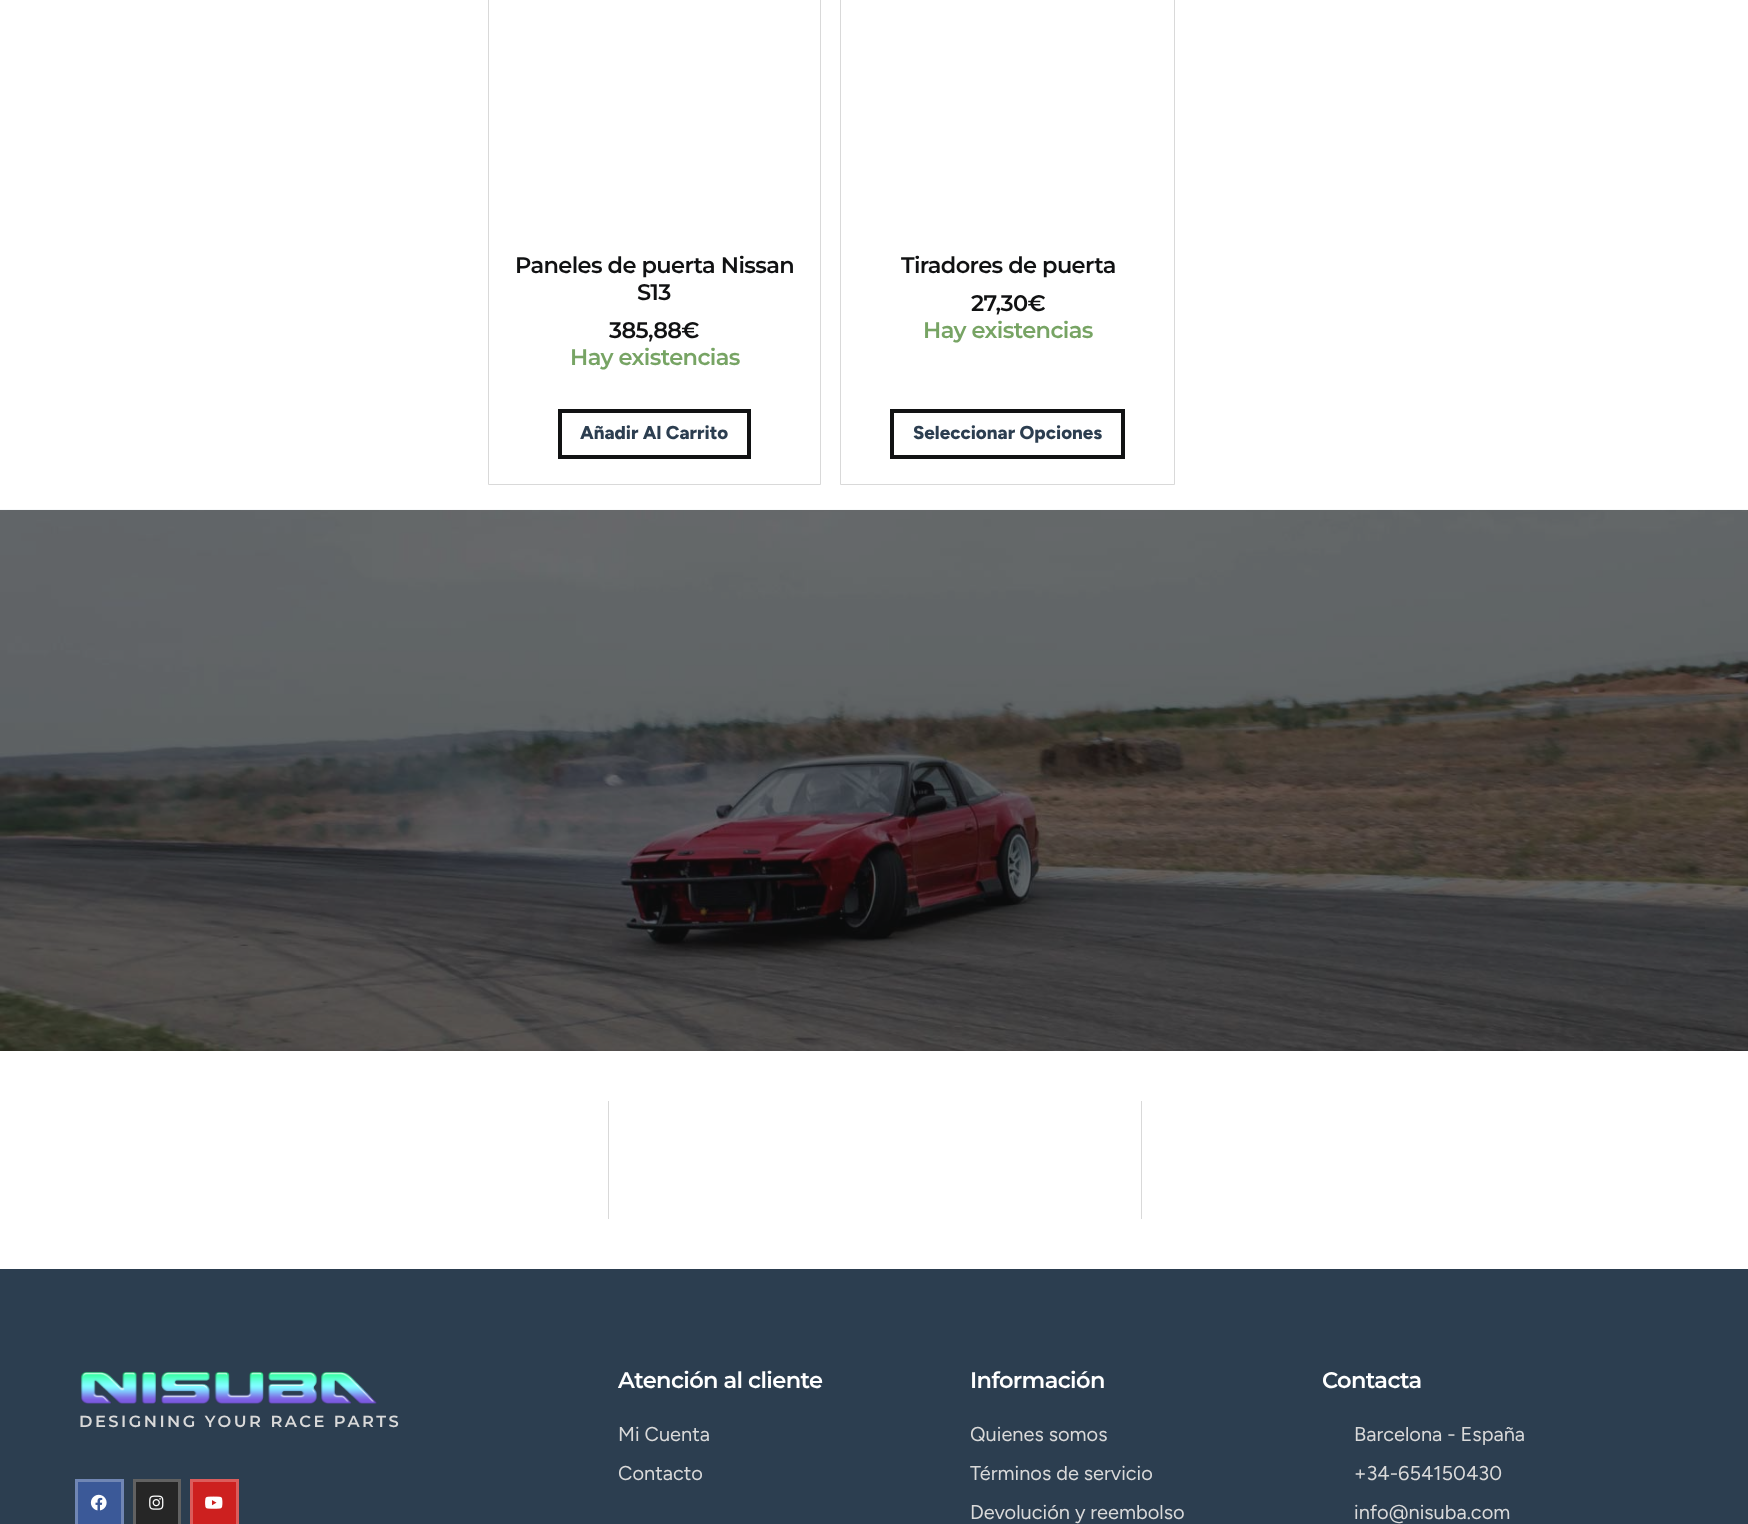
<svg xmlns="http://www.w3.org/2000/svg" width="1748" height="1524">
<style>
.a{font:600 22.5px Montserrat;letter-spacing:-0.6px;fill:#111213}
.b{font:600 22.5px Montserrat;letter-spacing:-0.6px;fill:#77a464}
.c{font:800 18.75px Figtree;fill:#2c3e50}
.d{font:600 16.25px Montserrat;letter-spacing:2.5px;fill:#d9d9d9}
.e{font:600 22.5px Montserrat;letter-spacing:-0.6px;fill:#fff}
.f{font:20px Figtree;fill:#d9d9d9}
</style>
<defs>
<clipPath id="clip1"><path d="M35 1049h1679v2H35z"/></clipPath>
</defs>
<rect width="100%" height="100%" fill="#fff"/>
<path fill="none" stroke="#d9d9d9" d="M488.5 -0.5h332v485H488.5z"/>
<path fill="none" stroke="#111213" stroke-width="4" d="M560 411h189v46H560z"/>
<path fill="none" stroke="#d9d9d9" d="M840.5 -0.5h334v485H840.5z"/>
<path fill="none" stroke="#111213" stroke-width="4" d="M892 411h231v46H892z"/>
<image href="1.png" x="0" y="509" width="1748" height="542"/>
<g clip-path="url(#clip1)">
<path fill="#00000026" filter="blur(19px)" d="M13 1070h1723v193H13z"/>
</g>
<path fill="#d9d9d9" d="M608 1101h1v118H608z"/>
<path fill="#d9d9d9" d="M1141 1101h1v118H1141z"/>
<path fill="#2c3e50" d="M0 1269h1748v255H0z"/>
<image href="2.png" x="80" y="1371" width="297" height="33"/>
<path fill="#3b5998" stroke="#7086b4" stroke-width="3" d="M76.5 1480.5h46v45H76.5z"/>
<image href="3.png" x="90" y="1494" width="17" height="17"/>
<path fill="#262626" stroke="#616161" stroke-width="3" d="M134.5 1480.5h45v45H134.5z"/>
<image href="4.png" x="149" y="1495" width="15" height="15"/>
<path fill="#cd201f" stroke="#db5c5b" stroke-width="3" d="M191.5 1480.5h46v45H191.5z"/>
<image href="5.png" x="205" y="1496" width="18" height="13"/>
<text class="a" x="515" y="273">Paneles de puerta Nissan</text>
<text class="a" x="637" y="300">S13</text>
<text class="a" x="609" y="338">385,88€</text>
<text class="b" x="570" y="365">Hay existencias</text>
<text class="c" x="580" y="439">Añadir Al Carrito</text>
<text class="a" x="901" y="273">Tiradores de puerta</text>
<text class="a" x="971" y="311">27,30€</text>
<text class="b" x="923" y="338">Hay existencias</text>
<text class="c" x="913" y="439">Seleccionar Opciones</text>
<text class="d" x="79" y="1427">DESIGNING YOUR RACE PARTS</text>
<text class="e" x="618" y="1388">Atención al cliente</text>
<text class="f" x="618" y="1441">Mi Cuenta</text>
<text class="f" x="618" y="1480">Contacto</text>
<text class="e" x="970" y="1388">Información</text>
<text class="f" x="970" y="1441">Quienes somos</text>
<text class="f" x="970" y="1480">Términos de servicio</text>
<text class="f" x="970" y="1519">Devolución y reembolso</text>
<text class="e" x="1322" y="1388">Contacta</text>
<text class="f" x="1354" y="1441">Barcelona - España</text>
<text class="f" x="1354" y="1480">+34-654150430</text>
<text class="f" x="1354" y="1519">info@nisuba.com</text>
</svg>
